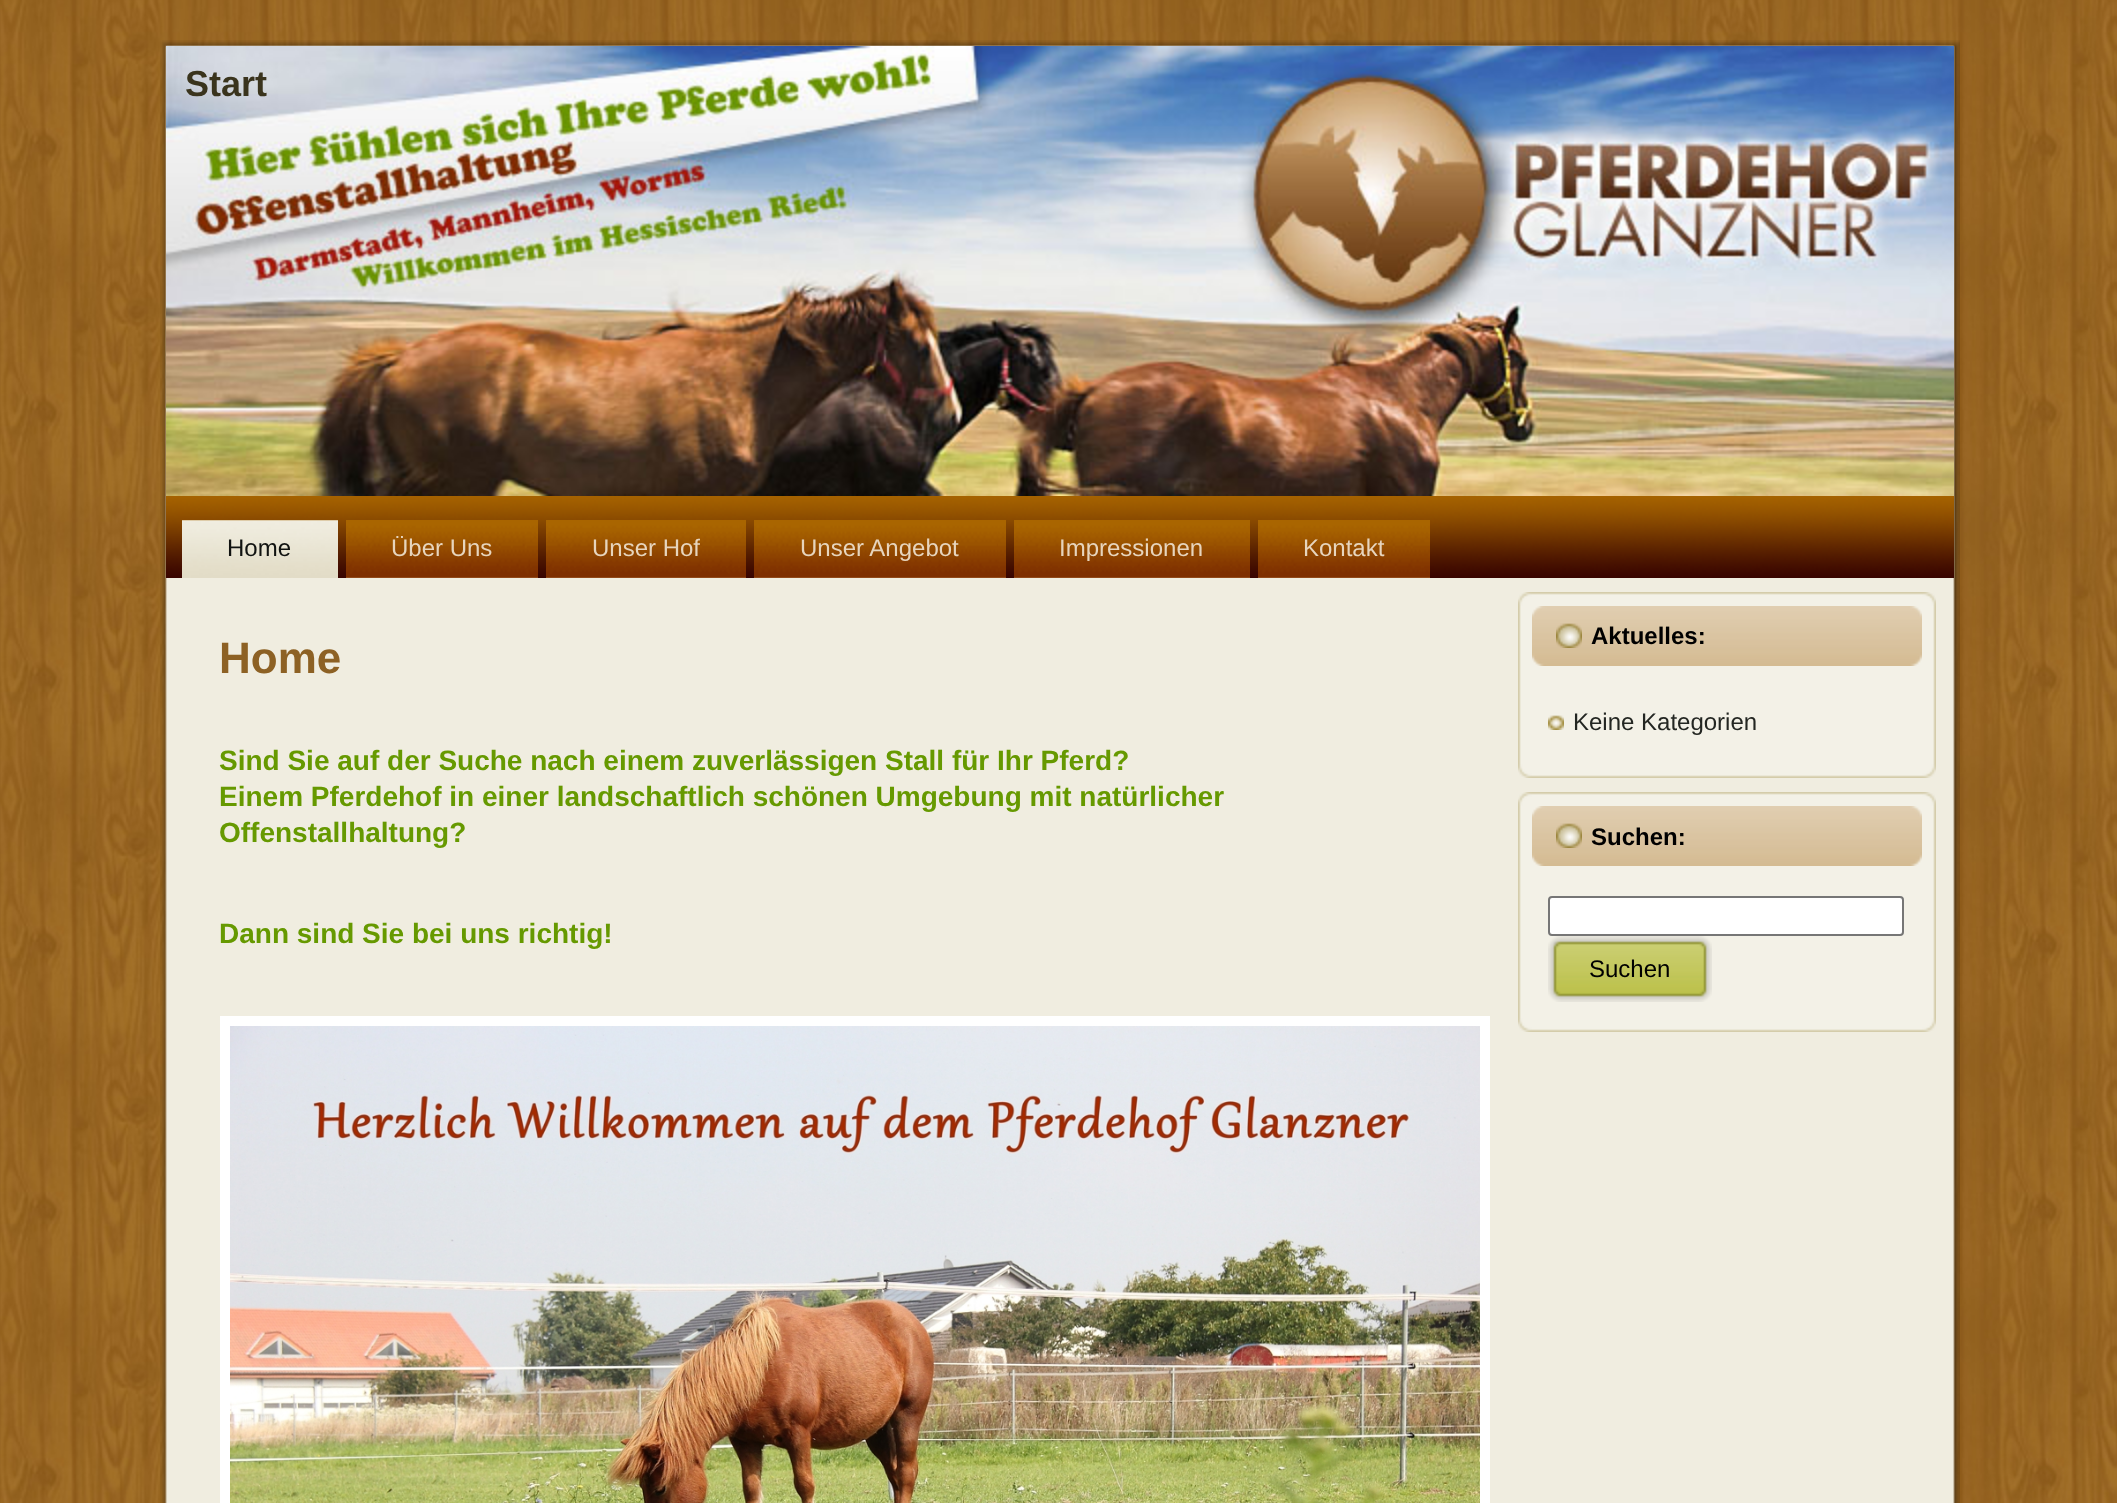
<svg xmlns="http://www.w3.org/2000/svg" width="2117" height="1503">
<style>
.a{font:bold 36px Liberation Sans;fill:#3a341d}
.b{font:24px Liberation Sans;fill:#111311}
.c{font:24px Liberation Sans;fill:#e7d5bd}
.d{font:bold 44px Liberation Sans;fill:#8d6124}
.e{font:bold 28px Liberation Sans;fill:#690}
.f{font:bold 24px Liberation Sans;fill:#000}
.g{font:24px Liberation Sans;fill:#232622}
.h{font:24px Liberation Sans;fill:#000}
</style>
<rect width="100%" height="100%" fill="#fff"/>
<image href="1.png" x="0" y="0" width="2117" height="1503"/>
<image href="2.png" x="160" y="40" width="26" height="26"/>
<image href="3.png" x="186" y="40" width="1748" height="6"/>
<image href="4.png" x="1934" y="40" width="26" height="26"/>
<image href="5.png" x="160" y="66" width="26" height="1437"/>
<image href="33.png" x="1934" y="66" width="26" height="1437"/>
<image href="6.png" x="166" y="46" width="1788" height="450"/>
<image href="7.png" x="166" y="496" width="1788" height="82"/>
<image href="8.png" x="182" y="520" width="148" height="58"/>
<image href="9.png" x="330" y="520" width="8" height="58"/>
<image href="10.png" x="346" y="520" width="184" height="58"/>
<image href="11.png" x="530" y="520" width="8" height="58"/>
<image href="12.png" x="546" y="520" width="192" height="58"/>
<image href="11.png" x="738" y="520" width="8" height="58"/>
<image href="13.png" x="754" y="520" width="244" height="58"/>
<image href="11.png" x="998" y="520" width="8" height="58"/>
<image href="14.png" x="1014" y="520" width="228" height="58"/>
<image href="11.png" x="1242" y="520" width="8" height="58"/>
<image href="15.png" x="1258" y="520" width="164" height="58"/>
<image href="11.png" x="1422" y="520" width="8" height="58"/>
<path fill="#f0ede0" d="M186 578h1748v925H186z"/>
<path fill="none" stroke="#fff" stroke-width="10" d="M225 1021h1260v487H225z"/>
<image href="16.png" x="230" y="1026" width="1250" height="477"/>
<image href="17.png" x="1518" y="592" width="14" height="14"/>
<image href="18.png" x="1532" y="592" width="390" height="14"/>
<image href="19.png" x="1922" y="592" width="14" height="14"/>
<image href="20.png" x="1518" y="606" width="14" height="158"/>
<path fill="#f3f1e7" d="M1532 606h390v158H1532z"/>
<image href="21.png" x="1922" y="606" width="14" height="158"/>
<image href="22.png" x="1532" y="606" width="378" height="60"/>
<image href="23.png" x="1910" y="606" width="12" height="60"/>
<image href="24.png" x="1556" y="623" width="26" height="25"/>
<image href="25.png" x="1548" y="715" width="16" height="15"/>
<image href="26.png" x="1518" y="764" width="14" height="14"/>
<image href="27.png" x="1532" y="764" width="390" height="14"/>
<image href="28.png" x="1922" y="764" width="14" height="14"/>
<image href="17.png" x="1518" y="792" width="14" height="14"/>
<image href="18.png" x="1532" y="792" width="390" height="14"/>
<image href="19.png" x="1922" y="792" width="14" height="14"/>
<image href="29.png" x="1518" y="806" width="14" height="212"/>
<path fill="#f3f1e7" d="M1532 806h390v212H1532z"/>
<image href="30.png" x="1922" y="806" width="14" height="212"/>
<image href="22.png" x="1532" y="806" width="378" height="60"/>
<image href="23.png" x="1910" y="806" width="12" height="60"/>
<image href="24.png" x="1556" y="823" width="26" height="25"/>
<rect fill="#fff" stroke="#767676" stroke-width="2" x="1549" y="897" width="354" height="38" rx="3"/>
<image href="31.png" x="1548" y="936" width="144" height="66"/>
<image href="32.png" x="1692" y="936" width="20" height="66"/>
<image href="26.png" x="1518" y="1018" width="14" height="14"/>
<image href="27.png" x="1532" y="1018" width="390" height="14"/>
<image href="28.png" x="1922" y="1018" width="14" height="14"/>
<text class="a" x="185" y="96">Start</text>
<text class="b" x="227" y="556">Home</text>
<text class="c" x="391" y="556">Über Uns</text>
<text class="c" x="592" y="556">Unser Hof</text>
<text class="c" x="800" y="556">Unser Angebot</text>
<text class="c" x="1059" y="556">Impressionen</text>
<text class="c" x="1303" y="556">Kontakt</text>
<text class="d" x="219" y="673">Home</text>
<text class="e" x="219" y="770">Sind Sie auf der Suche nach einem zuverlässigen Stall für Ihr Pferd?</text>
<text class="e" x="219" y="806">Einem Pferdehof in einer landschaftlich schönen Umgebung mit natürlicher</text>
<text class="e" x="219" y="842">Offenstallhaltung?</text>
<text class="e" x="219" y="943">Dann sind Sie bei uns richtig!</text>
<text class="f" x="1591" y="644">Aktuelles:</text>
<text class="g" x="1573" y="730">Keine Kategorien</text>
<text class="f" x="1591" y="845">Suchen:</text>
<text class="h" x="1589" y="977">Suchen</text>
</svg>
